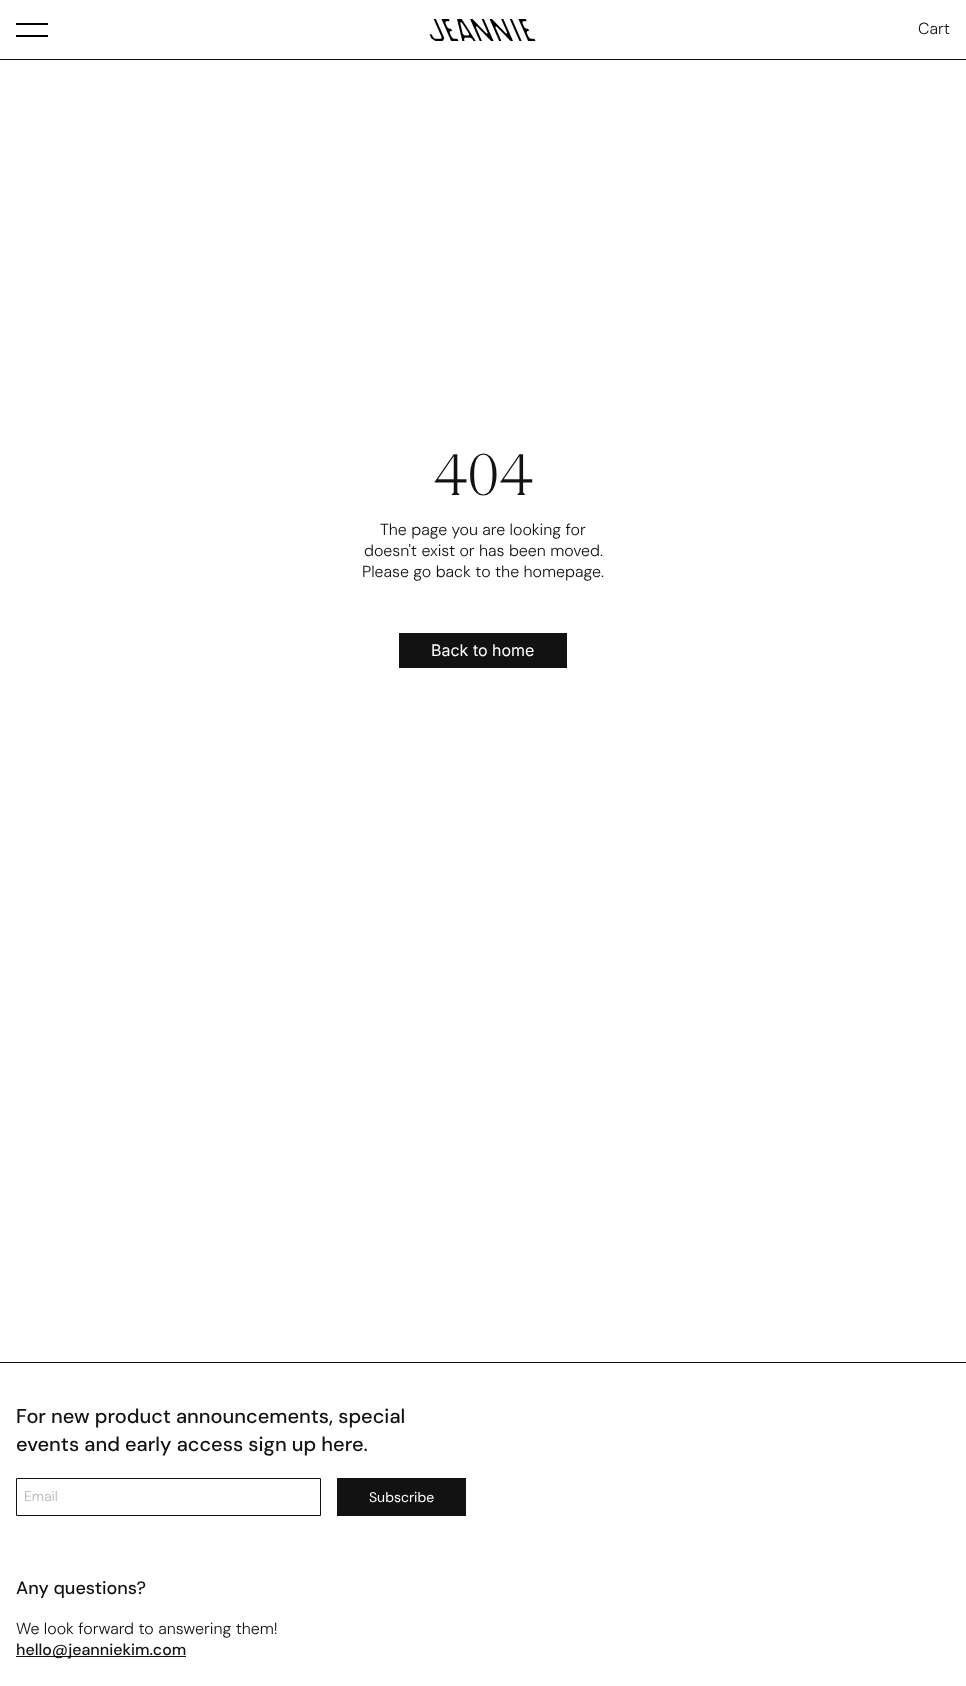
<svg xmlns="http://www.w3.org/2000/svg" width="966" height="1686">
<style>
.a{font:300 16px DM Sans;fill:#121212}
.b{font:300 60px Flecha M;fill:#121212}
.c{font:16px Inter;fill:#fff}
.d{font:500 20px DM Sans;fill:#121212}
.e{font:300 14px DM Sans;fill:#b6b6b6}
.f{font:14px DM Sans;fill:#fff}
.g{font:500 18px DM Sans;fill:#121212}
.h{font:500 16px DM Sans;fill:#121212}
</style>
<rect width="100%" height="100%" fill="#fff"/>
<path fill="#000" d="M16 23h32v2H16z"/>
<path fill="#000" d="M16 35h32v2H16z"/>
<image href="1.png" x="429" y="19" width="107" height="22"/>
<path fill="#121212" d="M0 59h966v1H0z"/>
<path fill="#121212" d="M399 633h168v35H399z"/>
<path fill="#121212" d="M0 1362h966v1H0z"/>
<path fill="none" stroke="#121212" d="M16.5 1478.5h304v37H16.5z"/>
<path fill="#121212" d="M337 1478h129v38H337z"/>
<path fill="#121212" d="M16 1656h170v1H16z"/>
<text class="a" x="918" y="34">Cart</text>
<text class="b" x="434" y="495">404</text>
<text class="a" x="380" y="535">The page you are looking for</text>
<text class="a" x="364" y="556">doesn't exist or has been moved.</text>
<text class="a" x="362" y="577">Please go back to the homepage.</text>
<text class="c" x="431" y="656">Back to home</text>
<text class="d" x="16" y="1423">For new product announcements, special</text>
<text class="d" x="16" y="1451">events and early access sign up here.</text>
<text class="e" x="24" y="1501">Email</text>
<text class="f" x="369" y="1502">Subscribe</text>
<text class="g" x="16" y="1594">Any questions?</text>
<text class="a" x="16" y="1634">We look forward to answering them!</text>
<text class="h" x="16" y="1655">hello@jeanniekim.com</text>
</svg>
